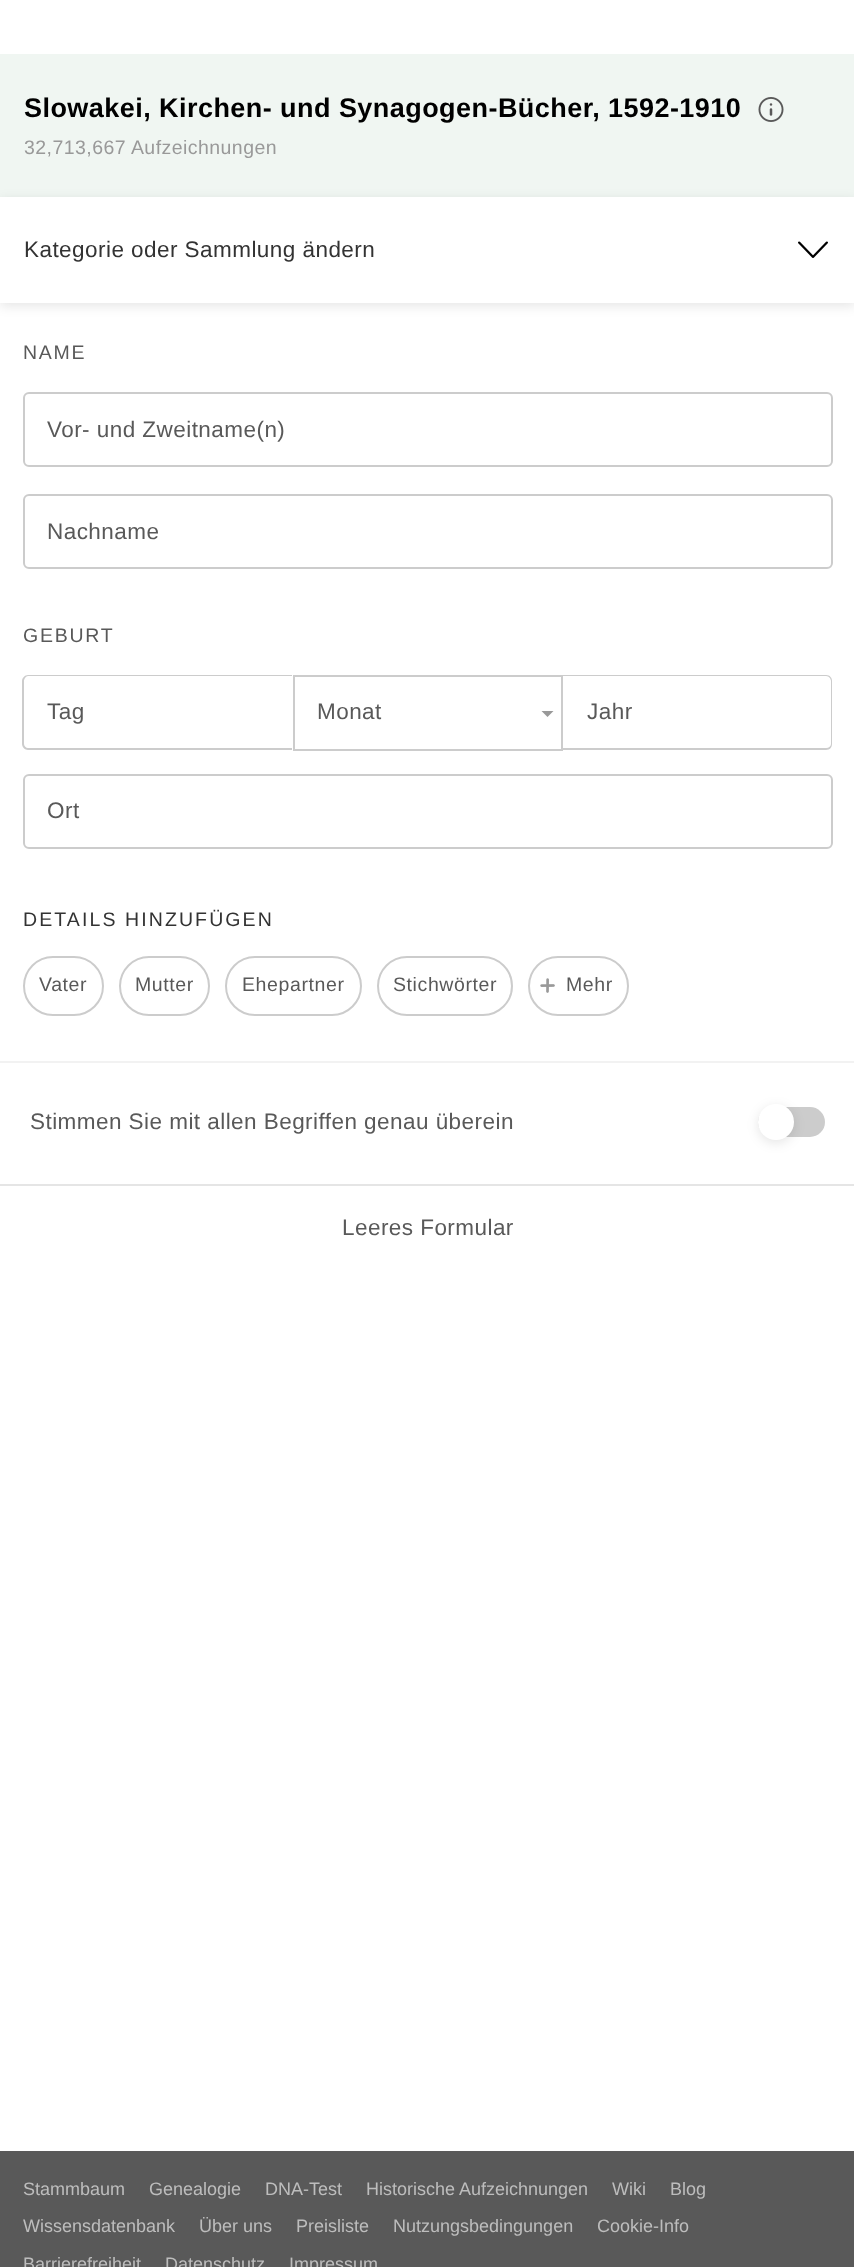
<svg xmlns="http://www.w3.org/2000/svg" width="854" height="2267">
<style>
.a{font:bold 27px Liberation Sans;letter-spacing:0.45px;fill:#000}
.b{font:19.5px Liberation Sans;letter-spacing:0.45px;fill:#999}
.c{font:22.5px Liberation Sans;letter-spacing:0.45px;fill:#333}
.d{font:19.5px Liberation Sans;letter-spacing:1.75px;fill:#595959}
.e{font:22.5px Liberation Sans;letter-spacing:0.45px;fill:#595959}
.f{font:19.5px Liberation Sans;letter-spacing:2.1px;fill:#333}
.g{font:19.5px Liberation Sans;letter-spacing:0.6px;fill:#595959}
.h{font:18px Liberation Sans;fill:#bdbdbd}
</style>
<defs>
<clipPath id="clip1"><path d="M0 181h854v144h-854zm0 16h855v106h-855z" clip-rule="evenodd"/></clipPath>
</defs>
<rect width="100%" height="100%" fill="#fff"/>
<path fill="#f0f6f2" d="M0 54h854v143H0z"/>
<image href="1.png" x="758" y="97" width="26" height="25"/>
<g clip-path="url(#clip1)">
<path fill="#0000001a" filter="blur(6px)" d="M0 200h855v106H0z"/>
</g>
<image href="2.png" x="798" y="241" width="30" height="17"/>
<rect fill="none" stroke="#ccc" stroke-width="2" x="24" y="393" width="808" height="73" rx="5"/>
<rect fill="none" stroke="#ccc" stroke-width="2" x="24" y="495" width="808" height="73" rx="5"/>
<path fill="#ccc" d="M293 675h270v2H293z"/>
<path fill="#ccc" d="M293 749h270v2H293z"/>
<path fill="#ccc" d="M293 677h2v72H293z"/>
<path fill="#999" d="M541.5 711h12l-6 6z"/>
<path fill="#ccc" d="M561 677h2v72H561z"/>
<rect fill="none" stroke="#ccc" stroke-width="2" x="24" y="775" width="808" height="73" rx="5"/>
<rect fill="none" stroke="#ccc" stroke-width="2" x="24" y="957" width="79" height="58" rx="29"/>
<rect fill="none" stroke="#ccc" stroke-width="2" x="120" y="957" width="89" height="58" rx="29"/>
<rect fill="none" stroke="#ccc" stroke-width="2" x="226" y="957" width="135" height="58" rx="29"/>
<rect fill="none" stroke="#ccc" stroke-width="2" x="378" y="957" width="134" height="58" rx="29"/>
<rect fill="none" stroke="#ccc" stroke-width="2" x="529" y="957" width="99" height="58" rx="29"/>
<image href="3.png" x="540" y="978" width="15" height="15"/>
<path fill="#f2f2f2" d="M0 1061h854v2H0z"/>
<path fill="#e5e5e5" d="M0 1184h854v2H0z"/>
<rect fill="#ccc" x="758" y="1107" width="67" height="30" rx="15"/>
<rect fill="#0000001a" filter="blur(6px)" x="758" y="1107" width="36" height="36" rx="18"/>
<circle fill="#fff" cx="776" cy="1122" r="18"/>
<path fill="#595959" d="M0 2151h854v116H0z"/>
<text class="a" x="24" y="117">Slowakei, Kirchen- und Synagogen-Bücher, 1592-1910</text>
<text class="b" x="24" y="154">32,713,667 Aufzeichnungen</text>
<text class="c" x="24" y="257">Kategorie oder Sammlung ändern</text>
<text class="d" x="23" y="359">NAME</text>
<text class="e" x="47" y="437">Vor- und Zweitname(n)</text>
<text class="e" x="47" y="539">Nachname</text>
<text class="d" x="23" y="642">GEBURT</text>
<text class="e" x="47" y="719">Tag</text>
<path fill="#ccc" fill-rule="evenodd" d="M28 675h264v75h-264c-3 0-6-3-6-6v-63c0-3 3-6 6-6zm0 1h264v72h-264c-2 0-4-2-4-4v-63c0-2 2-5 4-5z"/>
<text class="e" x="317" y="719">Monat</text>
<text class="e" x="587" y="719">Jahr</text>
<path fill="#ccc" fill-rule="evenodd" d="M562 675h264c4 0 6 3 6 6v63c0 3-2 6-6 6h-264zm0 1h264c3 0 5 3 5 5v63c0 2-2 4-5 4h-264z"/>
<text class="e" x="47" y="818">Ort</text>
<text class="f" x="23" y="926">DETAILS HINZUFÜGEN</text>
<text class="g" x="39" y="991">Vater</text>
<text class="g" x="135" y="991">Mutter</text>
<text class="g" x="242" y="991">Ehepartner</text>
<text class="g" x="393" y="991">Stichwörter</text>
<text class="g" x="566" y="991">Mehr</text>
<text class="e" x="30" y="1129">Stimmen Sie mit allen Begriffen genau überein</text>
<text class="e" x="342" y="1235">Leeres Formular</text>
<text class="h" x="23" y="2195">Stammbaum</text>
<text class="h" x="149" y="2195">Genealogie</text>
<text class="h" x="265" y="2195">DNA-Test</text>
<text class="h" x="366" y="2195">Historische Aufzeichnungen</text>
<text class="h" x="612" y="2195">Wiki</text>
<text class="h" x="670" y="2195">Blog</text>
<text class="h" x="23" y="2232">Wissensdatenbank</text>
<text class="h" x="199" y="2232">Über uns</text>
<text class="h" x="296" y="2232">Preisliste</text>
<text class="h" x="393" y="2232">Nutzungsbedingungen</text>
<text class="h" x="597" y="2232">Cookie-Info</text>
<text class="h" x="23" y="2270">Barrierefreiheit</text>
<text class="h" x="165" y="2270">Datenschutz</text>
<text class="h" x="289" y="2270">Impressum</text>
</svg>
